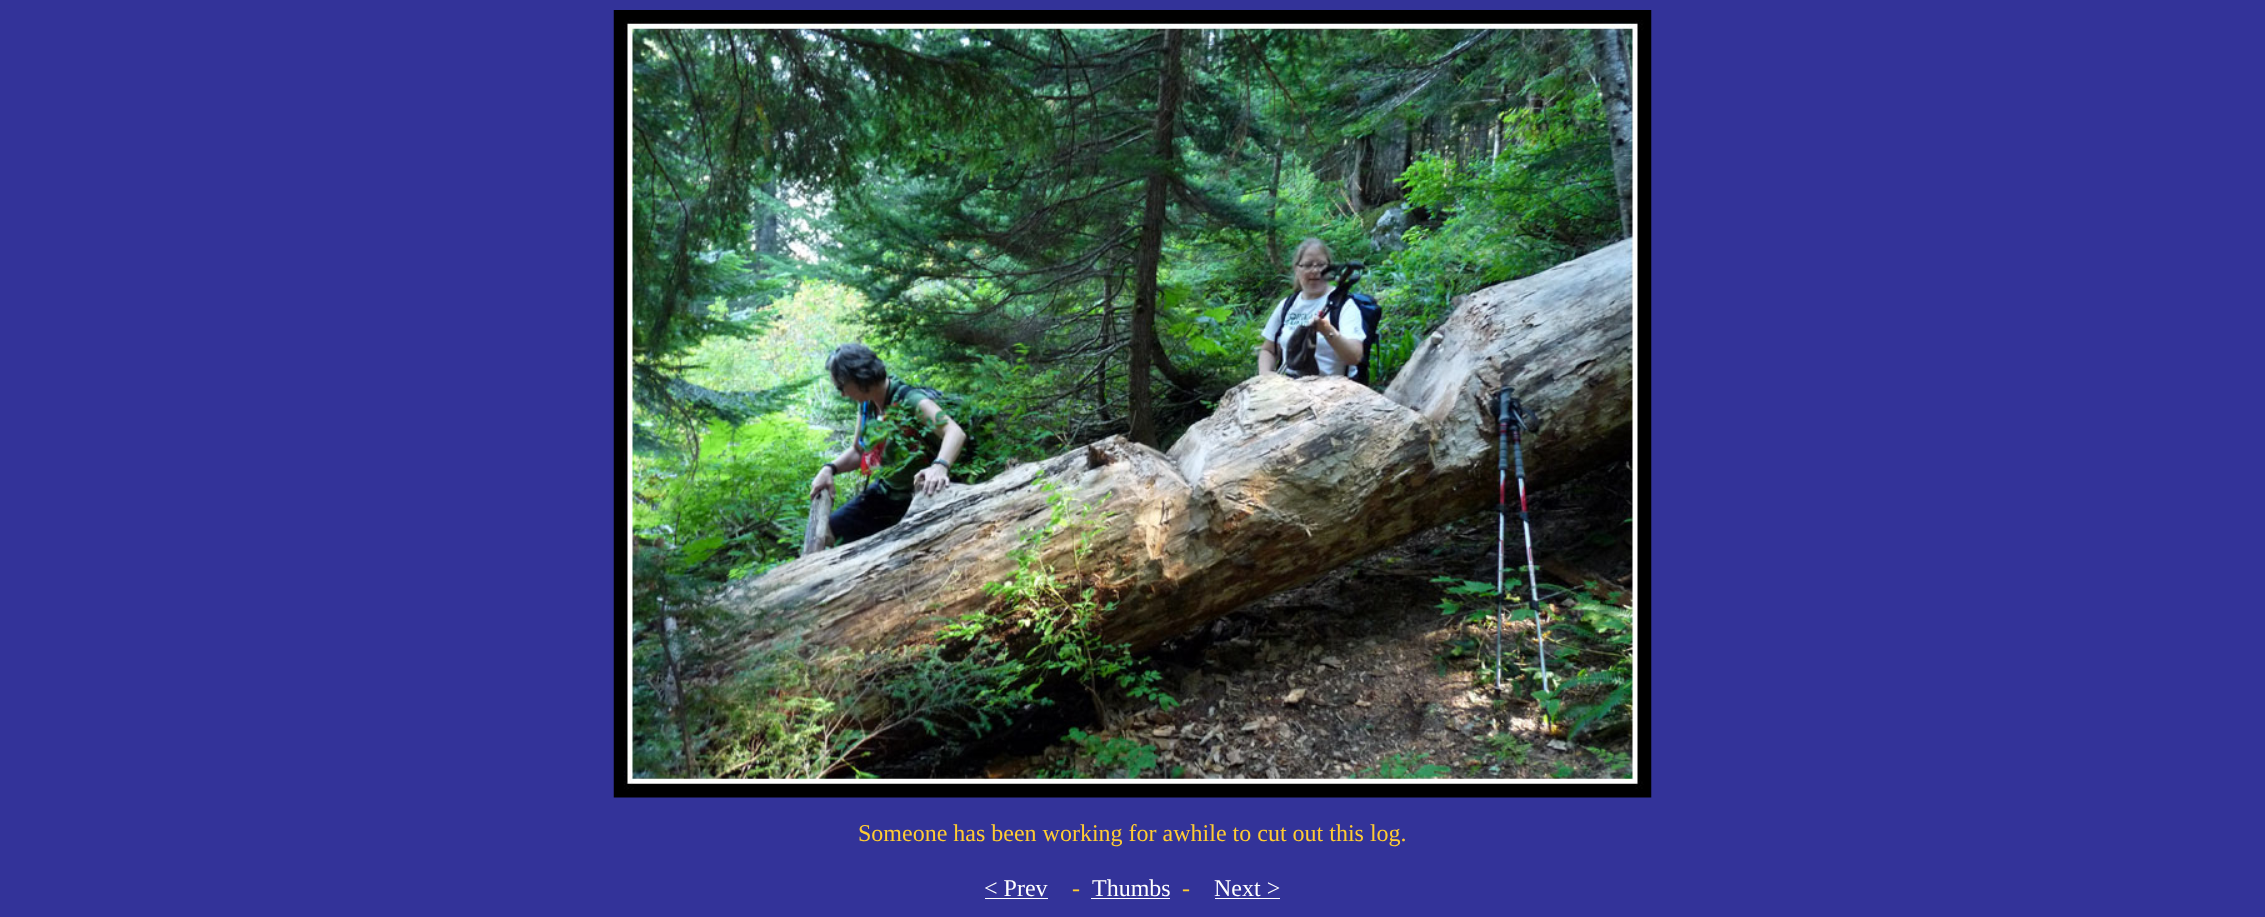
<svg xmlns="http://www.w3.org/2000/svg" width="2265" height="917">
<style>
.a{font:24px Liberation Serif;fill:#fc3}
.b{font:24px Liberation Serif;fill:#fff}
</style>
<rect width="100%" height="100%" fill="#339"/>
<image href="1.png" x="613" y="10" width="1039" height="788"/>
<path fill="#fff" d="M985 898h63v1H985z"/>
<path fill="#fff" d="M1091 898h79v1H1091z"/>
<path fill="#fff" d="M1215 898h65v1H1215z"/>
<text class="a" x="858" y="841">Someone has been working for awhile to cut out this log.</text>
<text class="b" x="984" y="896">&lt; Prev</text>
<text class="a" x="1072" y="896">-</text>
<text class="b" x="1092" y="896">Thumbs</text>
<text class="a" x="1182" y="896">-</text>
<text class="b" x="1214" y="896">Next &gt;</text>
</svg>
